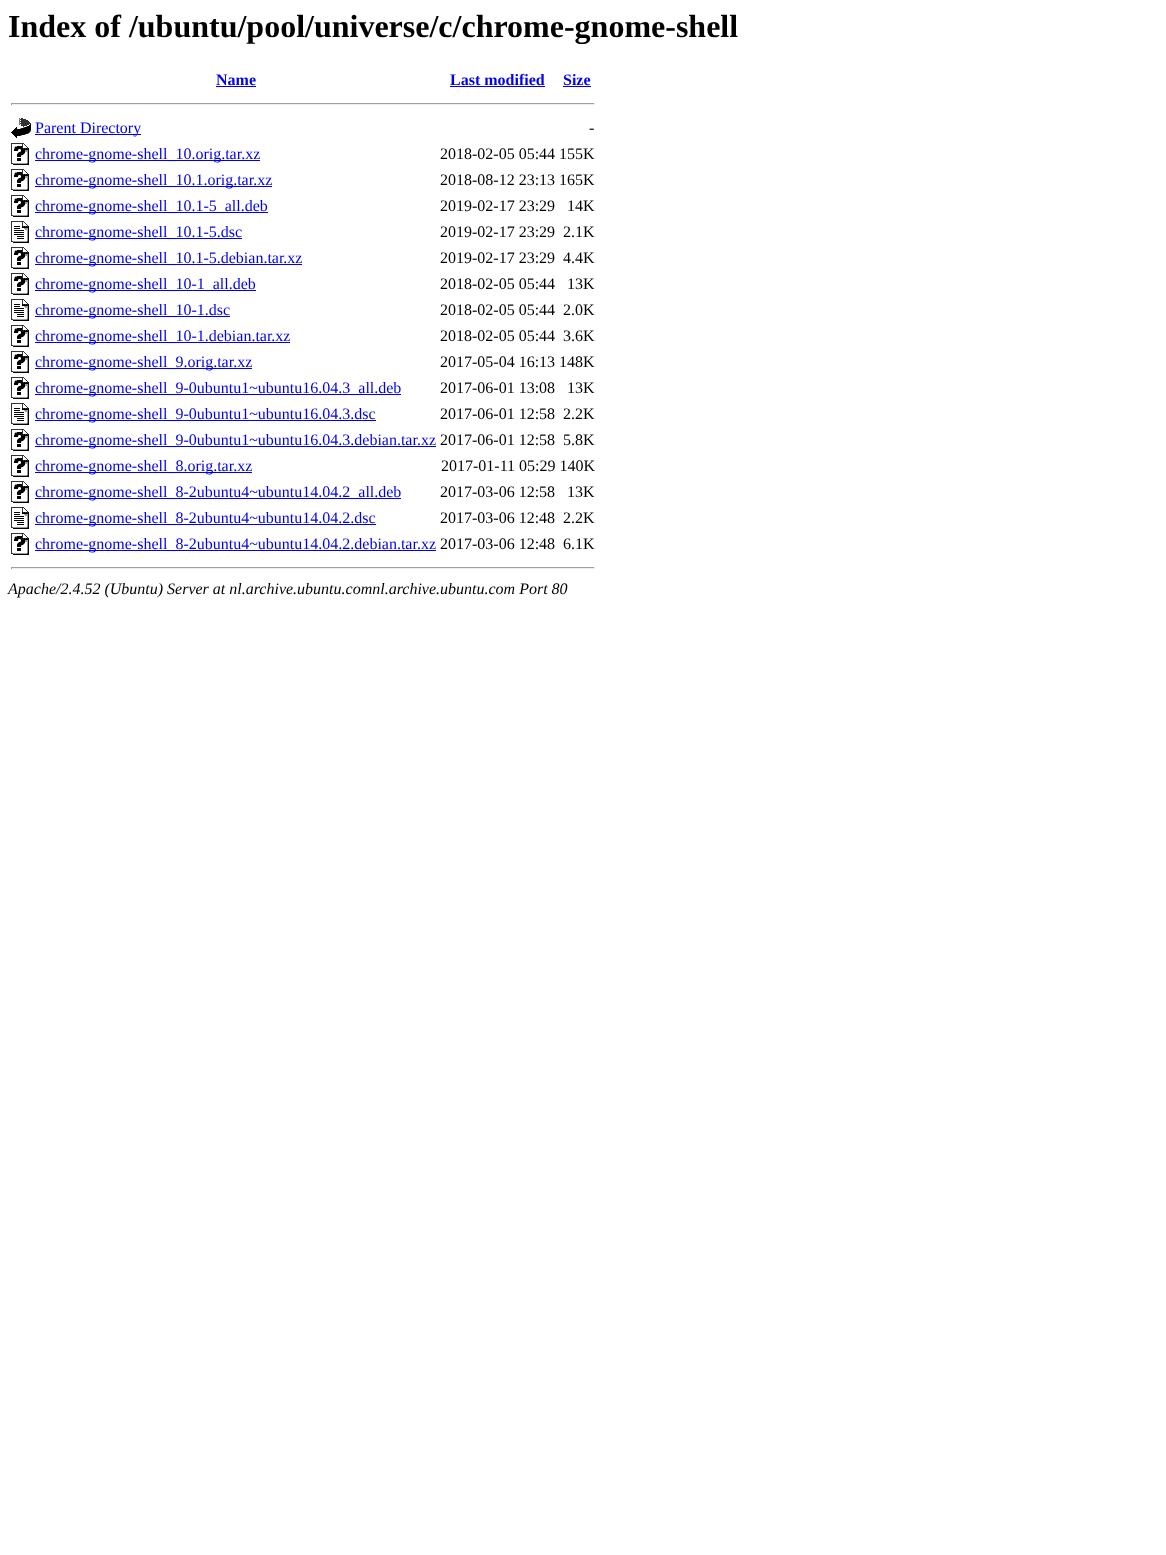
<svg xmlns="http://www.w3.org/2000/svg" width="1166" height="1555">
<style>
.a{font:bold 32px Liberation Serif;fill:#000}
.b{font:bold 16px Liberation Serif;fill:#00e}
.c{font:16px Liberation Serif;fill:#00e}
.d{font:16px Liberation Serif;fill:#000}
.e{font:italic 16px Liberation Serif;fill:#000}
</style>
<rect width="100%" height="100%" fill="#fff"/>
<path fill="#00e" d="M216 86h40v1H216z"/>
<path fill="#00e" d="M450 86h95v1H450z"/>
<path fill="#00e" d="M563 86h28v1H563z"/>
<path fill="#9f9f9f" d="M11 103h584v1H11z"/>
<path fill="#eee" d="M594 103h1v2H594z"/>
<path fill="#eee" d="M11 104h584v1H11z"/>
<path fill="#9f9f9f" d="M11 103h1v2H11z"/>
<image href="1.png" x="11" y="118" width="20" height="20"/>
<path fill="#00e" d="M35 134h106v1H35z"/>
<image href="2.png" x="11" y="143" width="18" height="22"/>
<path fill="#00e" d="M35 160h225v1H35z"/>
<image href="2.png" x="11" y="169" width="18" height="22"/>
<path fill="#00e" d="M35 186h237v1H35z"/>
<image href="2.png" x="11" y="195" width="18" height="22"/>
<path fill="#00e" d="M35 212h233v1H35z"/>
<image href="3.png" x="11" y="221" width="18" height="22"/>
<path fill="#00e" d="M35 238h207v1H35z"/>
<image href="2.png" x="11" y="247" width="18" height="22"/>
<path fill="#00e" d="M35 264h267v1H35z"/>
<image href="2.png" x="11" y="273" width="18" height="22"/>
<path fill="#00e" d="M35 290h221v1H35z"/>
<image href="3.png" x="11" y="299" width="18" height="22"/>
<path fill="#00e" d="M35 316h195v1H35z"/>
<image href="2.png" x="11" y="325" width="18" height="22"/>
<path fill="#00e" d="M35 342h255v1H35z"/>
<image href="2.png" x="11" y="351" width="18" height="22"/>
<path fill="#00e" d="M35 368h217v1H35z"/>
<image href="2.png" x="11" y="377" width="18" height="22"/>
<path fill="#00e" d="M35 394h366v1H35z"/>
<image href="3.png" x="11" y="403" width="18" height="22"/>
<path fill="#00e" d="M35 420h341v1H35z"/>
<image href="2.png" x="11" y="429" width="18" height="22"/>
<path fill="#00e" d="M35 446h401v1H35z"/>
<image href="2.png" x="11" y="455" width="18" height="22"/>
<path fill="#00e" d="M35 472h217v1H35z"/>
<image href="2.png" x="11" y="481" width="18" height="22"/>
<path fill="#00e" d="M35 498h366v1H35z"/>
<image href="3.png" x="11" y="507" width="18" height="22"/>
<path fill="#00e" d="M35 524h341v1H35z"/>
<image href="2.png" x="11" y="533" width="18" height="22"/>
<path fill="#00e" d="M35 550h401v1H35z"/>
<path fill="#9f9f9f" d="M11 567h584v1H11z"/>
<path fill="#eee" d="M594 567h1v2H594z"/>
<path fill="#eee" d="M11 568h584v1H11z"/>
<path fill="#9f9f9f" d="M11 567h1v2H11z"/>
<text class="a" x="8" y="37">Index of /ubuntu/pool/universe/c/chrome-gnome-shell</text>
<text class="b" x="216" y="85">Name</text>
<text class="b" x="450" y="85">Last modified</text>
<text class="b" x="563" y="85">Size</text>
<text class="c" x="35" y="133">Parent Directory</text>
<text class="d" x="589" y="133">-</text>
<text class="c" x="35" y="159">chrome-gnome-shell_10.orig.tar.xz</text>
<text class="d" x="440" y="159">2018-02-05 05:44 155K</text>
<text class="c" x="35" y="185">chrome-gnome-shell_10.1.orig.tar.xz</text>
<text class="d" x="440" y="185">2018-08-12 23:13 165K</text>
<text class="c" x="35" y="211">chrome-gnome-shell_10.1-5_all.deb</text>
<text class="d" x="440" y="211">2019-02-17 23:29</text>
<text class="d" x="567" y="211">14K</text>
<text class="c" x="35" y="237">chrome-gnome-shell_10.1-5.dsc</text>
<text class="d" x="440" y="237">2019-02-17 23:29</text>
<text class="d" x="563" y="237">2.1K</text>
<text class="c" x="35" y="263">chrome-gnome-shell_10.1-5.debian.tar.xz</text>
<text class="d" x="440" y="263">2019-02-17 23:29</text>
<text class="d" x="563" y="263">4.4K</text>
<text class="c" x="35" y="289">chrome-gnome-shell_10-1_all.deb</text>
<text class="d" x="440" y="289">2018-02-05 05:44</text>
<text class="d" x="567" y="289">13K</text>
<text class="c" x="35" y="315">chrome-gnome-shell_10-1.dsc</text>
<text class="d" x="440" y="315">2018-02-05 05:44</text>
<text class="d" x="563" y="315">2.0K</text>
<text class="c" x="35" y="341">chrome-gnome-shell_10-1.debian.tar.xz</text>
<text class="d" x="440" y="341">2018-02-05 05:44</text>
<text class="d" x="563" y="341">3.6K</text>
<text class="c" x="35" y="367">chrome-gnome-shell_9.orig.tar.xz</text>
<text class="d" x="440" y="367">2017-05-04 16:13 148K</text>
<text class="c" x="35" y="393">chrome-gnome-shell_9-0ubuntu1~ubuntu16.04.3_all.deb</text>
<text class="d" x="440" y="393">2017-06-01 13:08</text>
<text class="d" x="567" y="393">13K</text>
<text class="c" x="35" y="419">chrome-gnome-shell_9-0ubuntu1~ubuntu16.04.3.dsc</text>
<text class="d" x="440" y="419">2017-06-01 12:58</text>
<text class="d" x="563" y="419">2.2K</text>
<text class="c" x="35" y="445">chrome-gnome-shell_9-0ubuntu1~ubuntu16.04.3.debian.tar.xz</text>
<text class="d" x="440" y="445">2017-06-01 12:58</text>
<text class="d" x="563" y="445">5.8K</text>
<text class="c" x="35" y="471">chrome-gnome-shell_8.orig.tar.xz</text>
<text class="d" x="441" y="471">2017-01-11 05:29 140K</text>
<text class="c" x="35" y="497">chrome-gnome-shell_8-2ubuntu4~ubuntu14.04.2_all.deb</text>
<text class="d" x="440" y="497">2017-03-06 12:58</text>
<text class="d" x="567" y="497">13K</text>
<text class="c" x="35" y="523">chrome-gnome-shell_8-2ubuntu4~ubuntu14.04.2.dsc</text>
<text class="d" x="440" y="523">2017-03-06 12:48</text>
<text class="d" x="563" y="523">2.2K</text>
<text class="c" x="35" y="549">chrome-gnome-shell_8-2ubuntu4~ubuntu14.04.2.debian.tar.xz</text>
<text class="d" x="440" y="549">2017-03-06 12:48</text>
<text class="d" x="563" y="549">6.1K</text>
<text class="e" x="8" y="594">Apache/2.4.52 (Ubuntu) Server at nl.archive.ubuntu.comnl.archive.ubuntu.com Port 80</text>
</svg>
